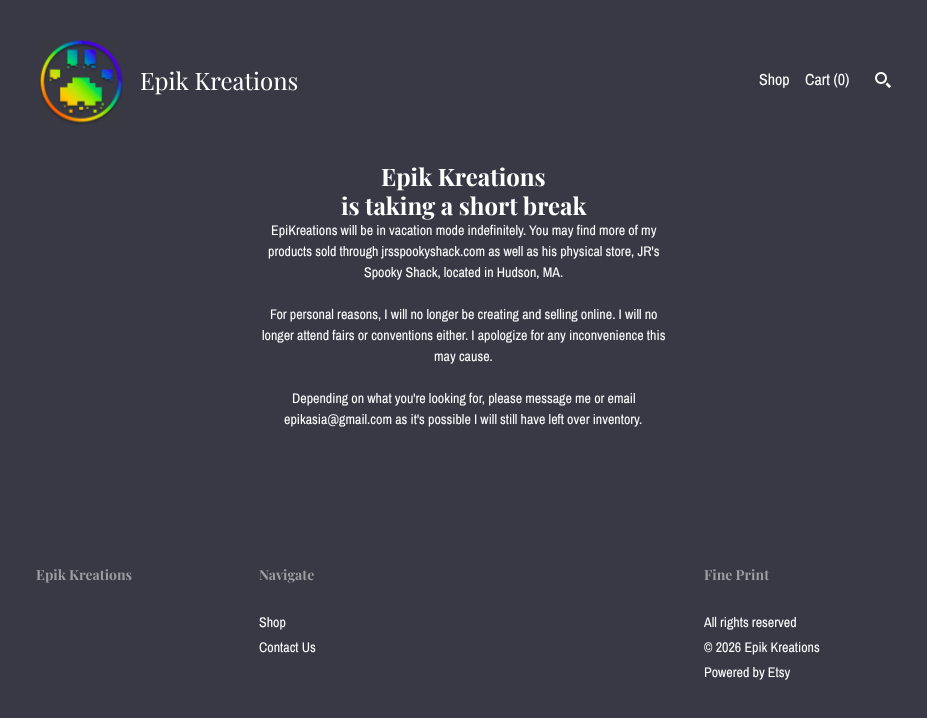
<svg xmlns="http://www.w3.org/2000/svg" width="927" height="718">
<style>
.a{font:24px Playfair Display;fill:#fff}
.b{font:16px Archivo Narrow;fill:#fff}
.c{font:bold 24px Playfair Display;fill:#fff}
.d{font:14px Archivo Narrow;fill:#fff}
.e{font:bold 14px Playfair Display;fill:#9c9ca2}
</style>
<rect width="100%" height="100%" fill="#383945"/>
<image href="1.png" x="39" y="40" width="84" height="85"/>
<image href="2.png" x="875" y="72" width="16" height="16"/>
<text class="a" x="140" y="90">Epik Kreations</text>
<text class="b" x="759" y="85">Shop</text>
<text class="b" x="805" y="85">Cart (0)</text>
<text class="c" x="381" y="186">Epik Kreations</text>
<text class="c" x="341" y="215">is taking a short break</text>
<text class="d" x="271" y="235">EpiKreations will be in vacation mode indefinitely. You may find more of my</text>
<text class="d" x="268" y="256">products sold through jrsspookyshack.com as well as his physical store, JR's</text>
<text class="d" x="364" y="277">Spooky Shack, located in Hudson, MA.</text>
<text class="d" x="270" y="319">For personal reasons, I will no longer be creating and selling online. I will no</text>
<text class="d" x="262" y="340">longer attend fairs or conventions either. I apologize for any inconvenience this</text>
<text class="d" x="434" y="361">may cause.</text>
<text class="d" x="292" y="403">Depending on what you're looking for, please message me or email</text>
<text class="d" x="284" y="424">epikasia@gmail.com as it's possible I will still have left over inventory.</text>
<text class="e" x="36" y="580">Epik Kreations</text>
<text class="e" x="259" y="580">Navigate</text>
<text class="d" x="259" y="627">Shop</text>
<text class="d" x="259" y="652">Contact Us</text>
<text class="e" x="704" y="580">Fine Print</text>
<text class="d" x="704" y="627">All rights reserved</text>
<text class="d" x="704" y="652">© 2026 Epik Kreations</text>
<text class="d" x="704" y="677">Powered by Etsy</text>
</svg>
